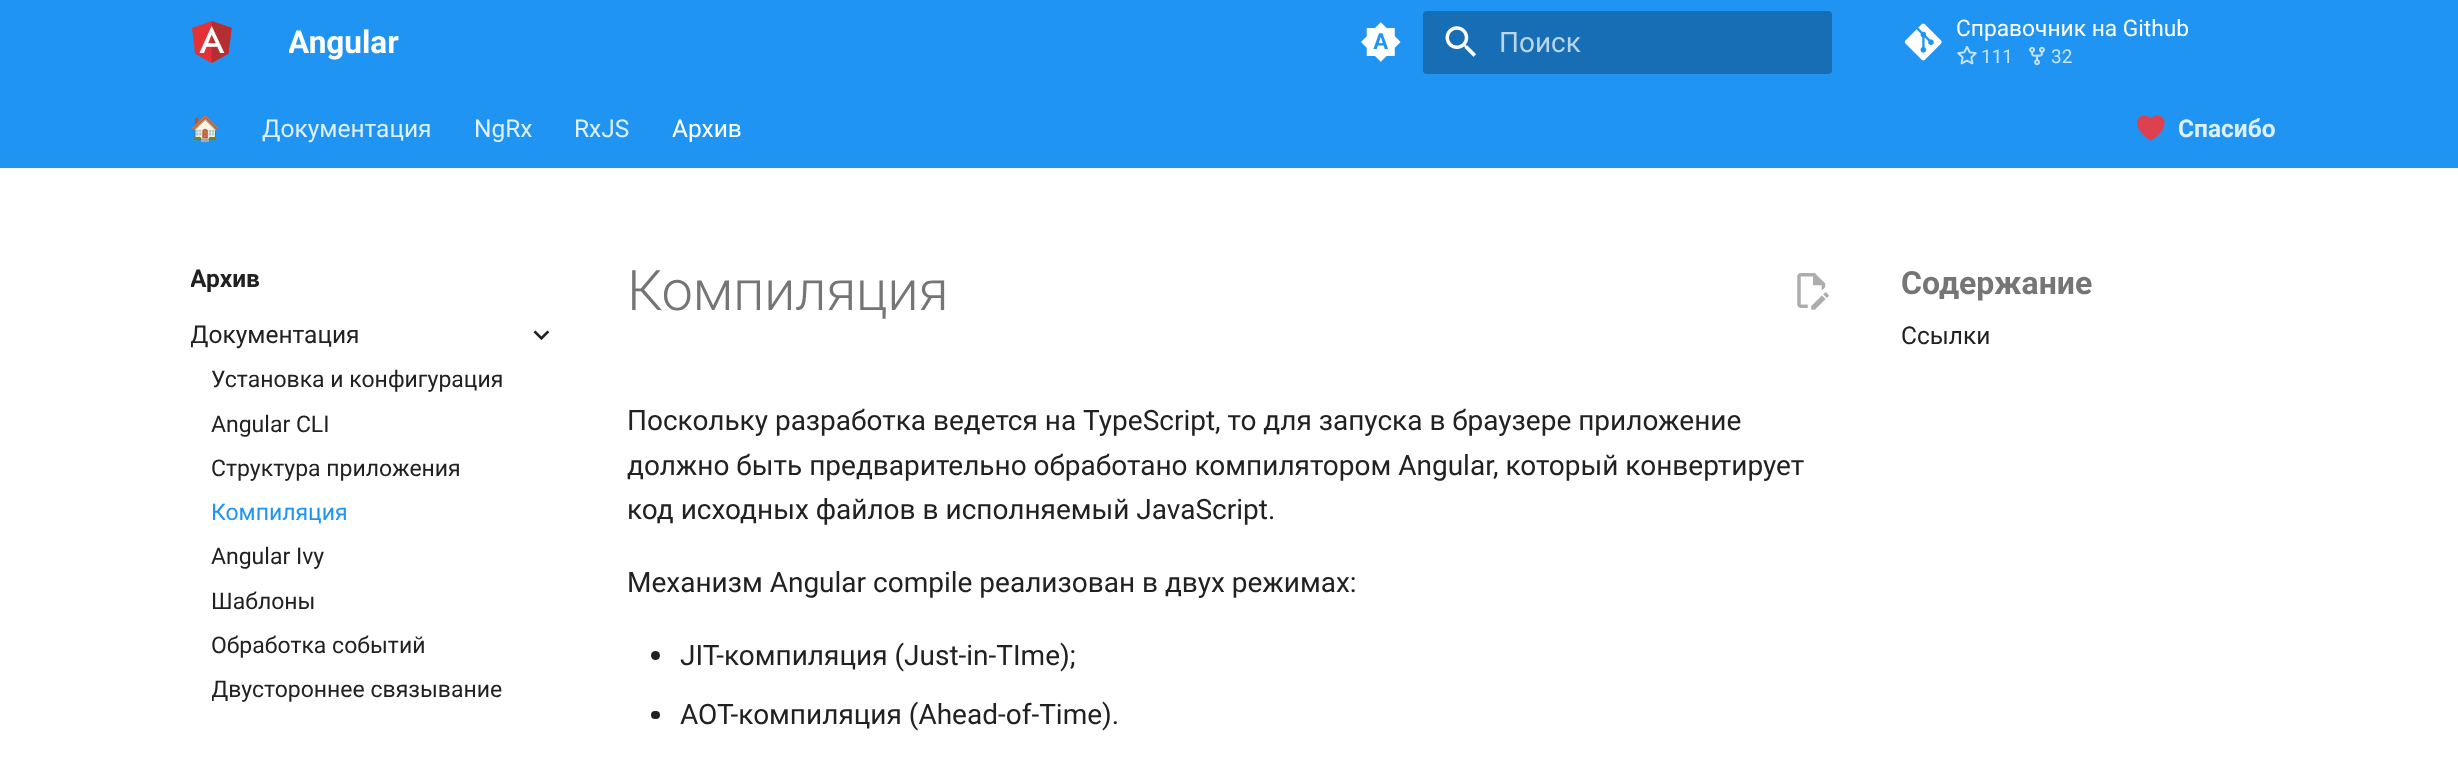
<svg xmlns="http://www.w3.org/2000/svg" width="2458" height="774">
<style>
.a{font:bold 31.5px Roboto;fill:#fff}
.b{font:28px Roboto;fill:#bad4e9}
.c{font:22.75px Roboto;fill:#fff}
.d{font:19px Roboto;fill:#c7e4fc}
.e{font:24.5px Noto Color Emoji;fill:#deeffd}
.f{font:24.5px Roboto;fill:#deeffd}
.g{font:24.5px Roboto;fill:#fff}
.h{font:bold 24.5px Roboto;fill:#deeffd}
.i{font:bold 24.5px Roboto;fill:#212121}
.j{font:24.5px Roboto;fill:#212121}
.k{font:23px Roboto;fill:#212121}
.l{font:23px Roboto;fill:#2094f3}
.m{font:300 56px Roboto;letter-spacing:-0.5px;fill:#757575}
.n{font:28px Roboto;fill:#212121}
.o{font:bold 32px Roboto;fill:#757575}
</style>
<defs>
<clipPath id="clip1"><path d="M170 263h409v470H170z"/></clipPath>
<clipPath id="clip2"><path d="M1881 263h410v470H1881z"/></clipPath>
<clipPath id="clip3"><path d="M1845 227h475v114h-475zm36 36h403v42h-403z" clip-rule="evenodd"/></clipPath>
<clipPath id="clip4"><path d="M289 0h110v84H289z"/></clipPath>
<clipPath id="clip5"><path d="M191 263h68v31H191z"/></clipPath>
<clipPath id="clip6"><path d="M191 319h168v31H191z"/></clipPath>
<clipPath id="clip7"><path d="M212 674h290v31H212z"/></clipPath>
</defs>
<rect width="100%" height="100%" fill="#fff"/>
<path fill="#2094f3" d="M0 0h2458v168H0z"/>
<image href="1.png" x="192" y="21" width="40" height="42"/>
<image href="2.png" x="1361" y="22" width="40" height="40"/>
<rect fill="#186eb4" x="1423" y="11" width="409" height="63" rx="4"/>
<image href="3.png" x="1445" y="26" width="31" height="31"/>
<image href="4.png" x="1904" y="23" width="38" height="38"/>
<image href="5.png" x="1957" y="46" width="20" height="19"/>
<image href="6.png" x="2029" y="46" width="16" height="20"/>
<image href="7.png" x="2137" y="115" width="28" height="26"/>
<image href="8.png" x="539" y="294" width="2" height="1"/>
<g clip-path="url(#clip1)">
<path fill="#fff" filter="blur(7px)" d="M177 249h395v59H177z"/>
</g>
<image href="9.png" x="533" y="330" width="17" height="10"/>
<image href="10.png" x="1797" y="273" width="32" height="37"/>
<circle fill="#212121" cx="655.5" cy="655.5" r="4.5"/>
<rect fill="#212121" x="651" y="711" width="9" height="8" rx="4"/>
<g clip-path="url(#clip2)">
<g clip-path="url(#clip3)">
<path fill="#fff" filter="blur(7px)" d="M1867 249h431v70H1867z"/>
</g>
</g>
<g clip-path="url(#clip4)">
<text class="a" x="288" y="53">Angular</text>
</g>
<text class="b" x="1499" y="52">Поиск</text>
<text class="c" x="1956" y="36">Справочник на Github</text>
<text class="d" x="1981" y="63">111</text>
<text class="d" x="2051" y="63">32</text>
<text class="e" x="190" y="137">🏠</text>
<text class="f" x="262" y="137">Документация</text>
<text class="f" x="474" y="137">NgRx</text>
<text class="f" x="574" y="137">RxJS</text>
<text class="g" x="672" y="137">Архив</text>
<text class="h" x="2178" y="137">Спасибо</text>
<g clip-path="url(#clip5)">
<text class="i" x="190" y="287">Архив</text>
</g>
<g clip-path="url(#clip6)">
<text class="j" x="190" y="343">Документация</text>
</g>
<text class="k" x="211" y="387">Установка и конфигурация</text>
<text class="k" x="211" y="432">Angular CLI</text>
<text class="k" x="211" y="476">Структура приложения</text>
<text class="l" x="211" y="520">Компиляция</text>
<text class="k" x="211" y="564">Angular Ivy</text>
<text class="k" x="211" y="609">Шаблоны</text>
<text class="k" x="211" y="653">Обработка событий</text>
<g clip-path="url(#clip7)">
<text class="k" x="211" y="697">Двустороннее связывание</text>
</g>
<text class="m" x="627" y="310">Компиляция</text>
<text class="n" x="627" y="430">Поскольку разработка ведется на TypeScript, то для запуска в браузере приложение</text>
<text class="n" x="627" y="475">должно быть предварительно обработано компилятором Angular, который конвертирует</text>
<text class="n" x="627" y="519">код исходных файлов в исполняемый JavaScript.</text>
<text class="n" x="627" y="592">Механизм Angular compile реализован в двух режимах:</text>
<text class="n" x="680" y="665">JIT-компиляция (Just-in-TIme);</text>
<text class="n" x="680" y="724">AOT-компиляция (Ahead-of-Time).</text>
<text class="o" x="1901" y="294">Содержание</text>
<text class="j" x="1901" y="344">Ссылки</text>
</svg>
